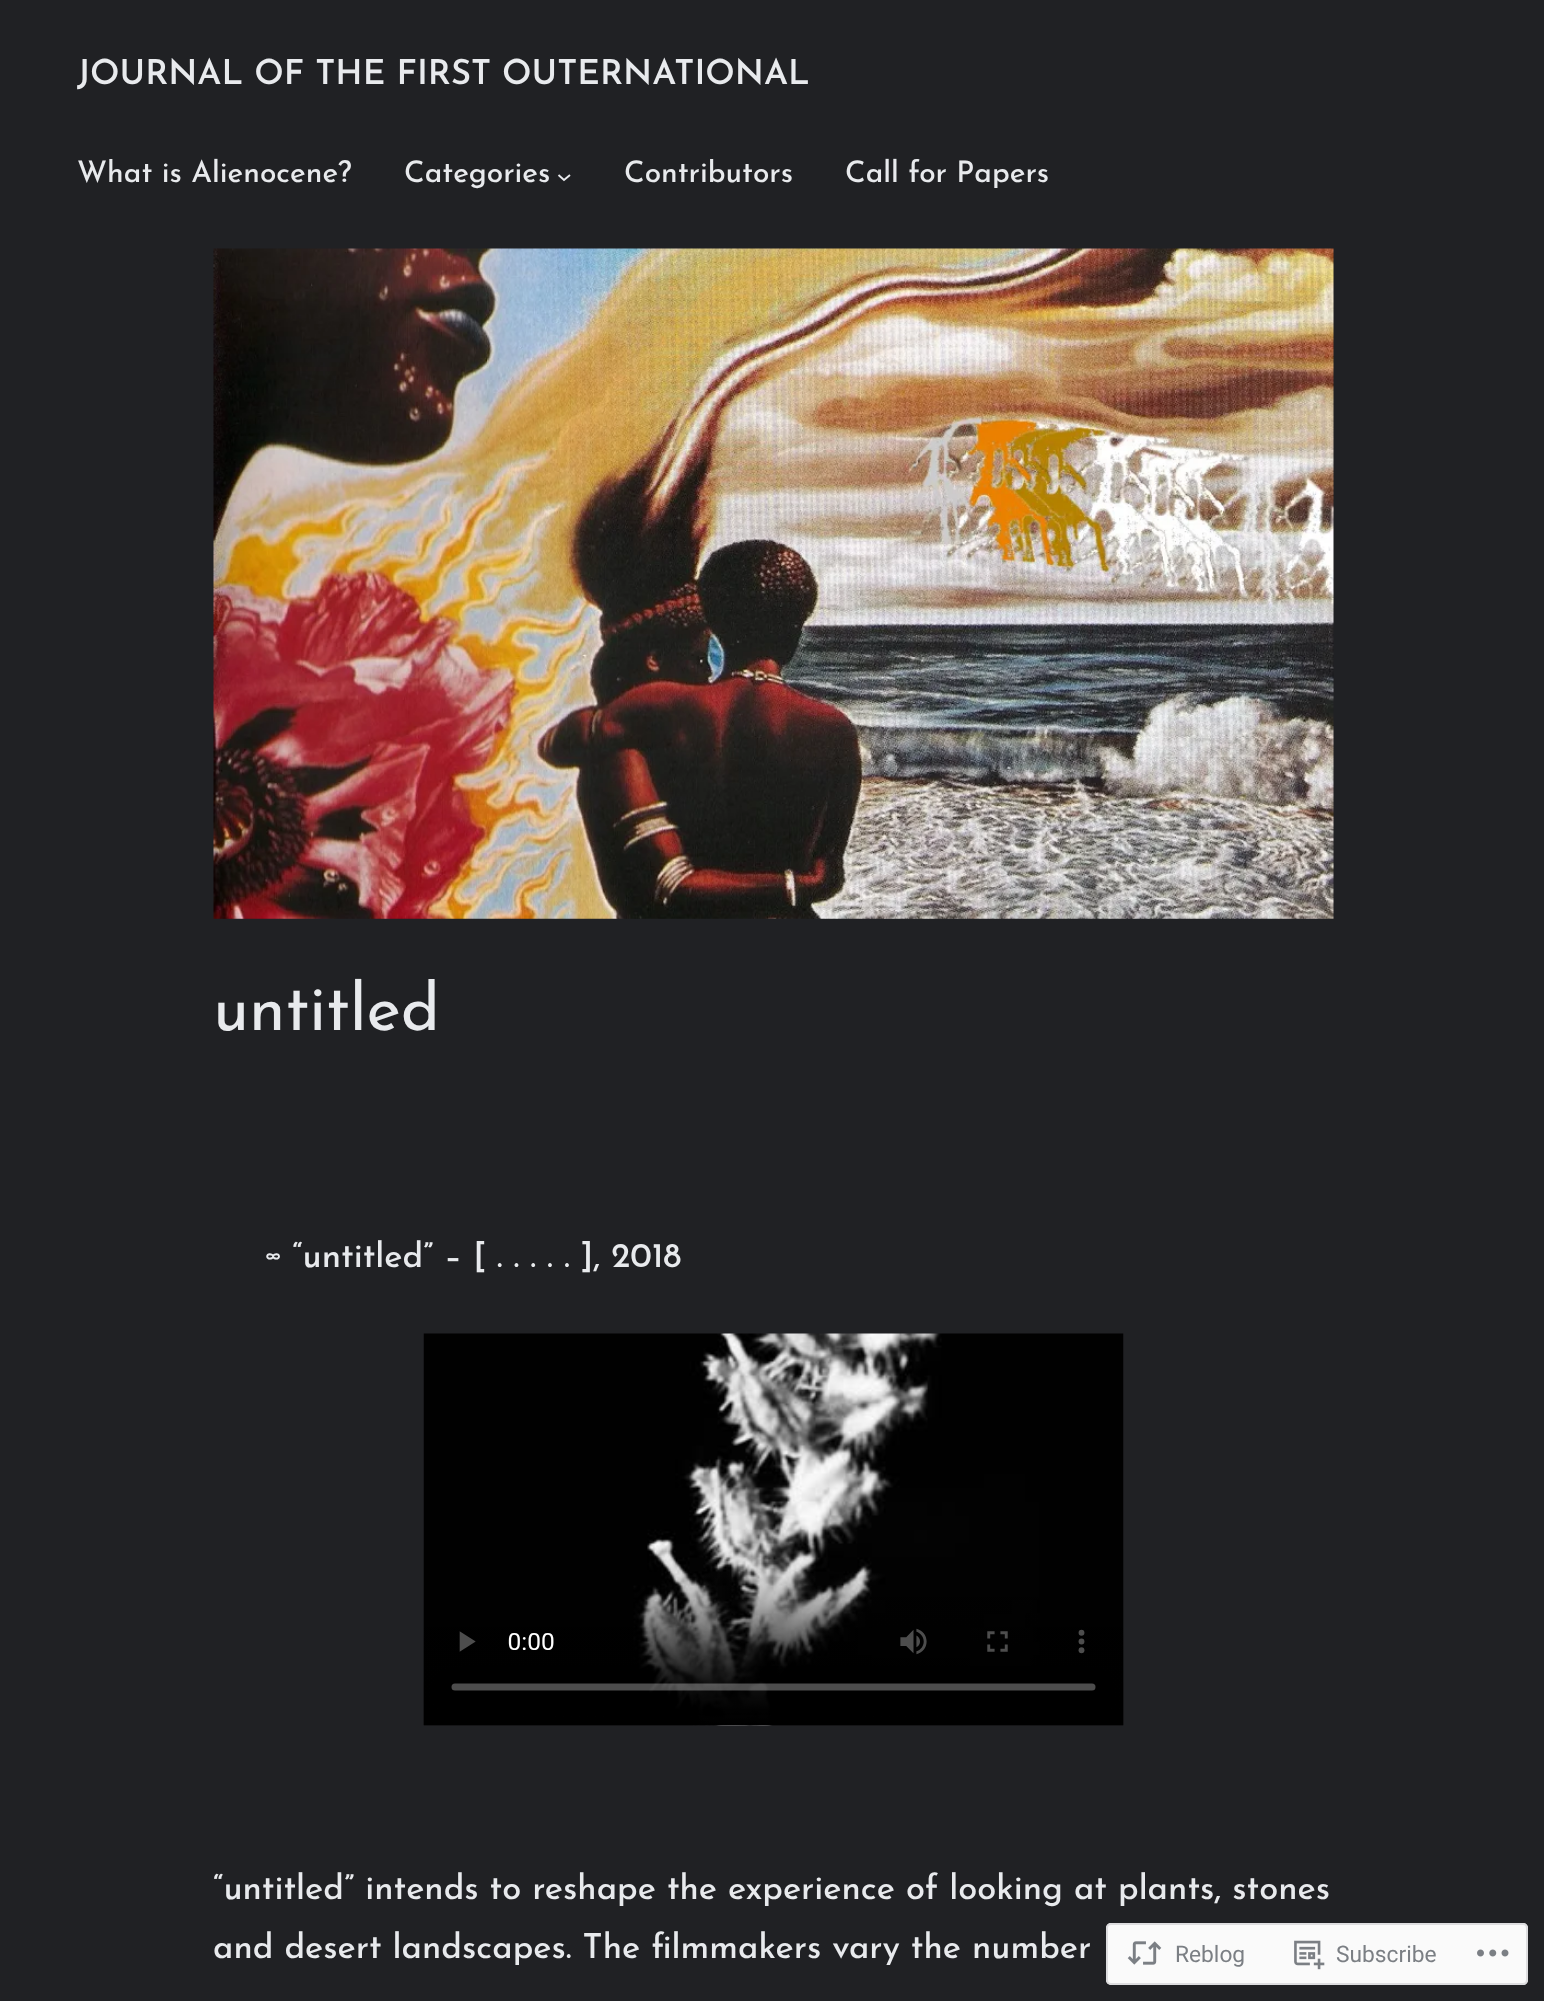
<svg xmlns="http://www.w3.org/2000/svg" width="1544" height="2001">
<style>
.a{font:600 34.5px Josefin Sans;fill:#e8eaed}
.b{font:500 29.75px Josefin Sans;fill:#e8eaed}
.c{font:66px Josefin Sans;fill:#e8eaed}
.d{font:500 34.5px Josefin Sans;fill:#e8eaed}
.e{font:22.75px Roboto;fill:#7b7f84}
</style>
<rect width="100%" height="100%" fill="#202124"/>
<path fill="none" stroke="#e8eaed" stroke-width="1.9" d="M558.5 175l5.5 5l6-5"/>
<image href="1.png" x="213" y="248" width="1121" height="671"/>
<image href="2.png" x="423" y="1333" width="701" height="393"/>
<rect fill="#fffffffa" x="1106" y="1923" width="422" height="62" rx="5"/>
<rect fill="none" stroke="#dcdcdefa" stroke-width="2" x="1107" y="1924" width="420" height="60" rx="4"/>
<image href="3.png" x="1127" y="1941" width="35" height="24"/>
<image href="4.png" x="1294" y="1940" width="31" height="30"/>
<image href="5.png" x="1477" y="1949" width="32" height="8"/>
<text class="a" x="77" y="84">JOURNAL OF THE FIRST OUTERNATIONAL</text>
<text class="b" x="77" y="182">What is Alienocene?</text>
<text class="b" x="404" y="182">Categories</text>
<text class="b" x="624" y="182">Contributors</text>
<text class="b" x="845" y="182">Call for Papers</text>
<text class="c" x="213" y="1030">untitled</text>
<text class="d" x="265" y="1267">∞ “untitled” – [ . . . . . ], 2018</text>
<text class="d" x="213" y="1899">“untitled” intends to reshape the experience of looking at plants, stones</text>
<text class="d" x="213" y="1958">and desert landscapes. The filmmakers vary the number</text>
<text class="e" x="1175" y="1962">Reblog</text>
<text class="e" x="1336" y="1962">Subscribe</text>
</svg>
